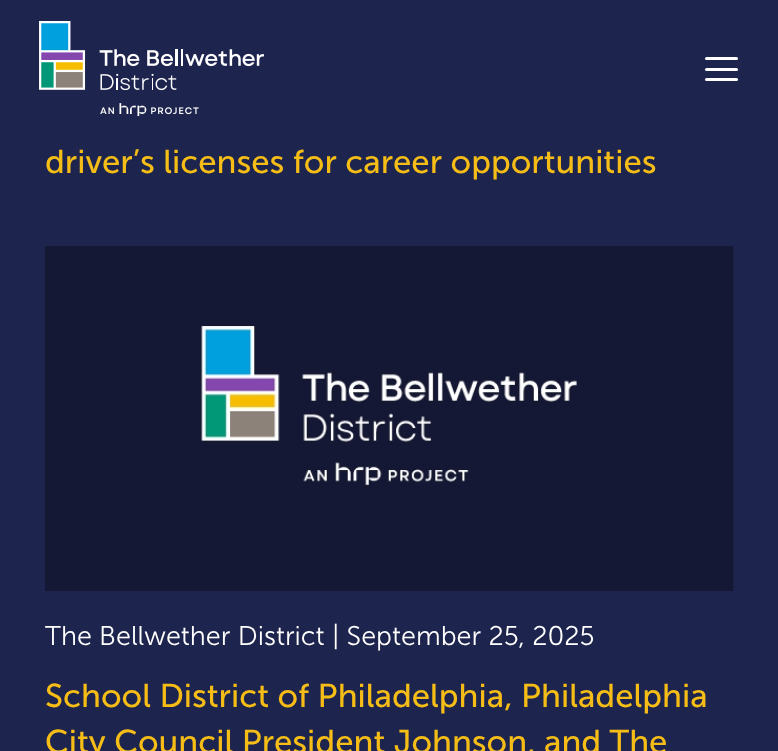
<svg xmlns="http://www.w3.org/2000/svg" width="778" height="751">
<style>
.a{font:33px 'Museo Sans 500';fill:#f6bd17}
.b{font:300 27px 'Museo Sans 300';fill:#fff}
</style>
<rect width="100%" height="100%" fill="#1d244d"/>
<image href="1.png" x="39" y="21" width="225" height="95"/>
<rect fill="#fff" x="705" y="57" width="33" height="3" rx="1.5"/>
<rect fill="#fff" x="705" y="68" width="33" height="3" rx="1.5"/>
<rect fill="#fff" x="705" y="78" width="33" height="3" rx="1.5"/>
<image href="2.png" x="45" y="246" width="689" height="345"/>
<text class="a" x="45" y="173">driver’s licenses for career opportunities</text>
<text class="b" x="45" y="645">The Bellwether District | September 25, 2025</text>
<text class="a" x="45" y="707">School District of Philadelphia, Philadelphia</text>
<text class="a" x="45" y="753">City Council President Johnson, and The</text>
</svg>
